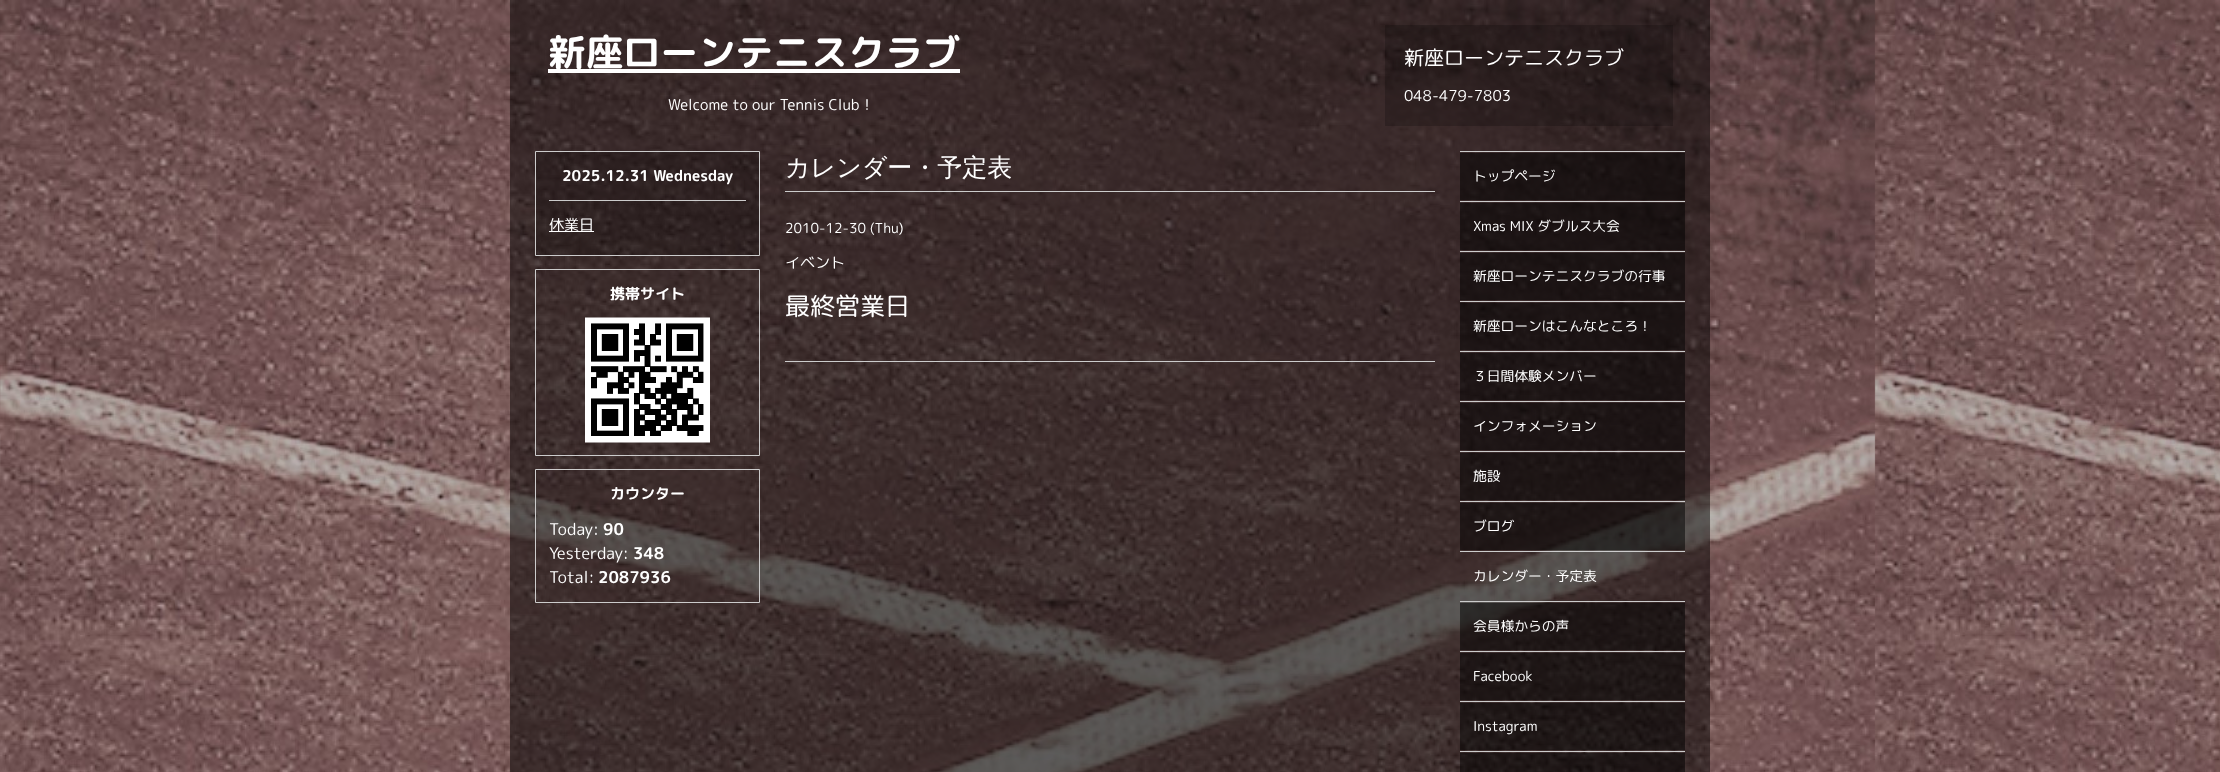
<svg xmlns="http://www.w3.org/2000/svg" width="2220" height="772">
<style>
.a{font:bold 37.5px 'Rounded Mplus 1c Bold';fill:#fff}
.b{font:15px 'Rounded Mplus 1c';fill:#fff}
.c{font:20px 'Rounded Mplus 1c';fill:#fff}
.d{font:bold 15px 'Rounded Mplus 1c Bold';fill:#fff}
.e{font:16.25px 'Rounded Mplus 1c';fill:#fff}
.f{font:bold 16.25px 'Rounded Mplus 1c Bold';fill:#fff}
.g{font:500 25px WenQuanYi Zen Hei;fill:#fff}
.h{font:13.75px 'Rounded Mplus 1c';fill:#fff}
.i{font:25px 'Rounded Mplus 1c';fill:#fff}
</style>
<rect width="100%" height="100%" fill="#fff"/>
<image href="1.png" x="0" y="0" width="2220" height="772"/>
<path fill="#00000080" d="M510 0h1200v772H510z"/>
<path fill="#fff" d="M548 69h412v4H548z"/>
<path fill="#00000033" d="M1385 25h288v101H1385z"/>
<path fill="#00000033" stroke="#ccc" d="M535.5 151.5h224v104H535.5z"/>
<path fill="#ccc" d="M549 200h197v1H549z"/>
<path fill="#fff" d="M549 231h45v1H549z"/>
<path fill="none" stroke="#ccc" d="M535.5 269.5h224v186H535.5z"/>
<image href="2.png" x="585" y="317" width="125" height="126"/>
<path fill="none" stroke="#ccc" d="M535.5 469.5h224v133H535.5z"/>
<path fill="#ccc" d="M785 191h650v1H785z"/>
<path fill="#ccc" d="M785 361h650v1H785z"/>
<path fill="#ccc" d="M1460 151h225v1H1460z"/>
<path fill="#ccc" d="M1460 201h225v1H1460z"/>
<path fill="#00000080" d="M1460 153h225v47H1460z"/>
<path fill="#ccc" d="M1460 251h225v1H1460z"/>
<path fill="#00000080" d="M1460 203h225v47H1460z"/>
<path fill="#ccc" d="M1460 301h225v1H1460z"/>
<path fill="#00000080" d="M1460 253h225v47H1460z"/>
<path fill="#ccc" d="M1460 351h225v1H1460z"/>
<path fill="#00000080" d="M1460 303h225v47H1460z"/>
<path fill="#ccc" d="M1460 401h225v1H1460z"/>
<path fill="#00000080" d="M1460 353h225v47H1460z"/>
<path fill="#ccc" d="M1460 451h225v1H1460z"/>
<path fill="#00000080" d="M1460 403h225v47H1460z"/>
<path fill="#ccc" d="M1460 501h225v1H1460z"/>
<path fill="#00000080" d="M1460 453h225v47H1460z"/>
<path fill="#ccc" d="M1460 551h225v1H1460z"/>
<path fill="#00000080" d="M1460 503h225v47H1460z"/>
<path fill="#ccc" d="M1460 601h225v1H1460z"/>
<path fill="#ccc" d="M1460 651h225v1H1460z"/>
<path fill="#00000080" d="M1460 603h225v47H1460z"/>
<path fill="#ccc" d="M1460 701h225v1H1460z"/>
<path fill="#00000080" d="M1460 653h225v47H1460z"/>
<path fill="#ccc" d="M1460 751h225v1H1460z"/>
<path fill="#00000080" d="M1460 703h225v47H1460z"/>
<path fill="#00000080" d="M1460 753h225v19H1460z"/>
<text class="a" x="548" y="66">新座ローンテニスクラブ</text>
<text class="b" x="668" y="110">Welcome to our Tennis Club！</text>
<text class="c" x="1404" y="65">新座ローンテニスクラブ</text>
<text class="b" x="1404" y="101">048-479-7803</text>
<text class="d" x="562" y="181">2025.12.31 Wednesday</text>
<text class="b" x="549" y="230">休業日</text>
<text class="d" x="610" y="299">携帯サイト</text>
<text class="d" x="610" y="499">カウンター</text>
<text class="e" x="549" y="535">Today:</text>
<text class="f" x="603" y="535">90</text>
<text class="e" x="549" y="559">Yesterday:</text>
<text class="f" x="633" y="559">348</text>
<text class="e" x="549" y="583">Total:</text>
<text class="f" x="598" y="583">2087936</text>
<text class="g" x="785" y="176">カレンダー・予定表</text>
<text class="h" x="785" y="233">2010-12-30 (Thu)</text>
<text class="b" x="785" y="268">イベント</text>
<text class="i" x="785" y="315">最終営業日</text>
<text class="h" x="1473" y="181">トップページ</text>
<text class="h" x="1473" y="231">Xmas MIX ダブルス大会</text>
<text class="h" x="1473" y="281">新座ローンテニスクラブの行事</text>
<text class="h" x="1473" y="331">新座ローンはこんなところ！</text>
<text class="h" x="1473" y="381">３日間体験メンバー</text>
<text class="h" x="1473" y="431">インフォメーション</text>
<text class="h" x="1473" y="481">施設</text>
<text class="h" x="1473" y="531">ブログ</text>
<text class="h" x="1473" y="581">カレンダー・予定表</text>
<text class="h" x="1473" y="631">会員様からの声</text>
<text class="h" x="1473" y="681">Facebook</text>
<text class="h" x="1473" y="731">Instagram</text>
</svg>
